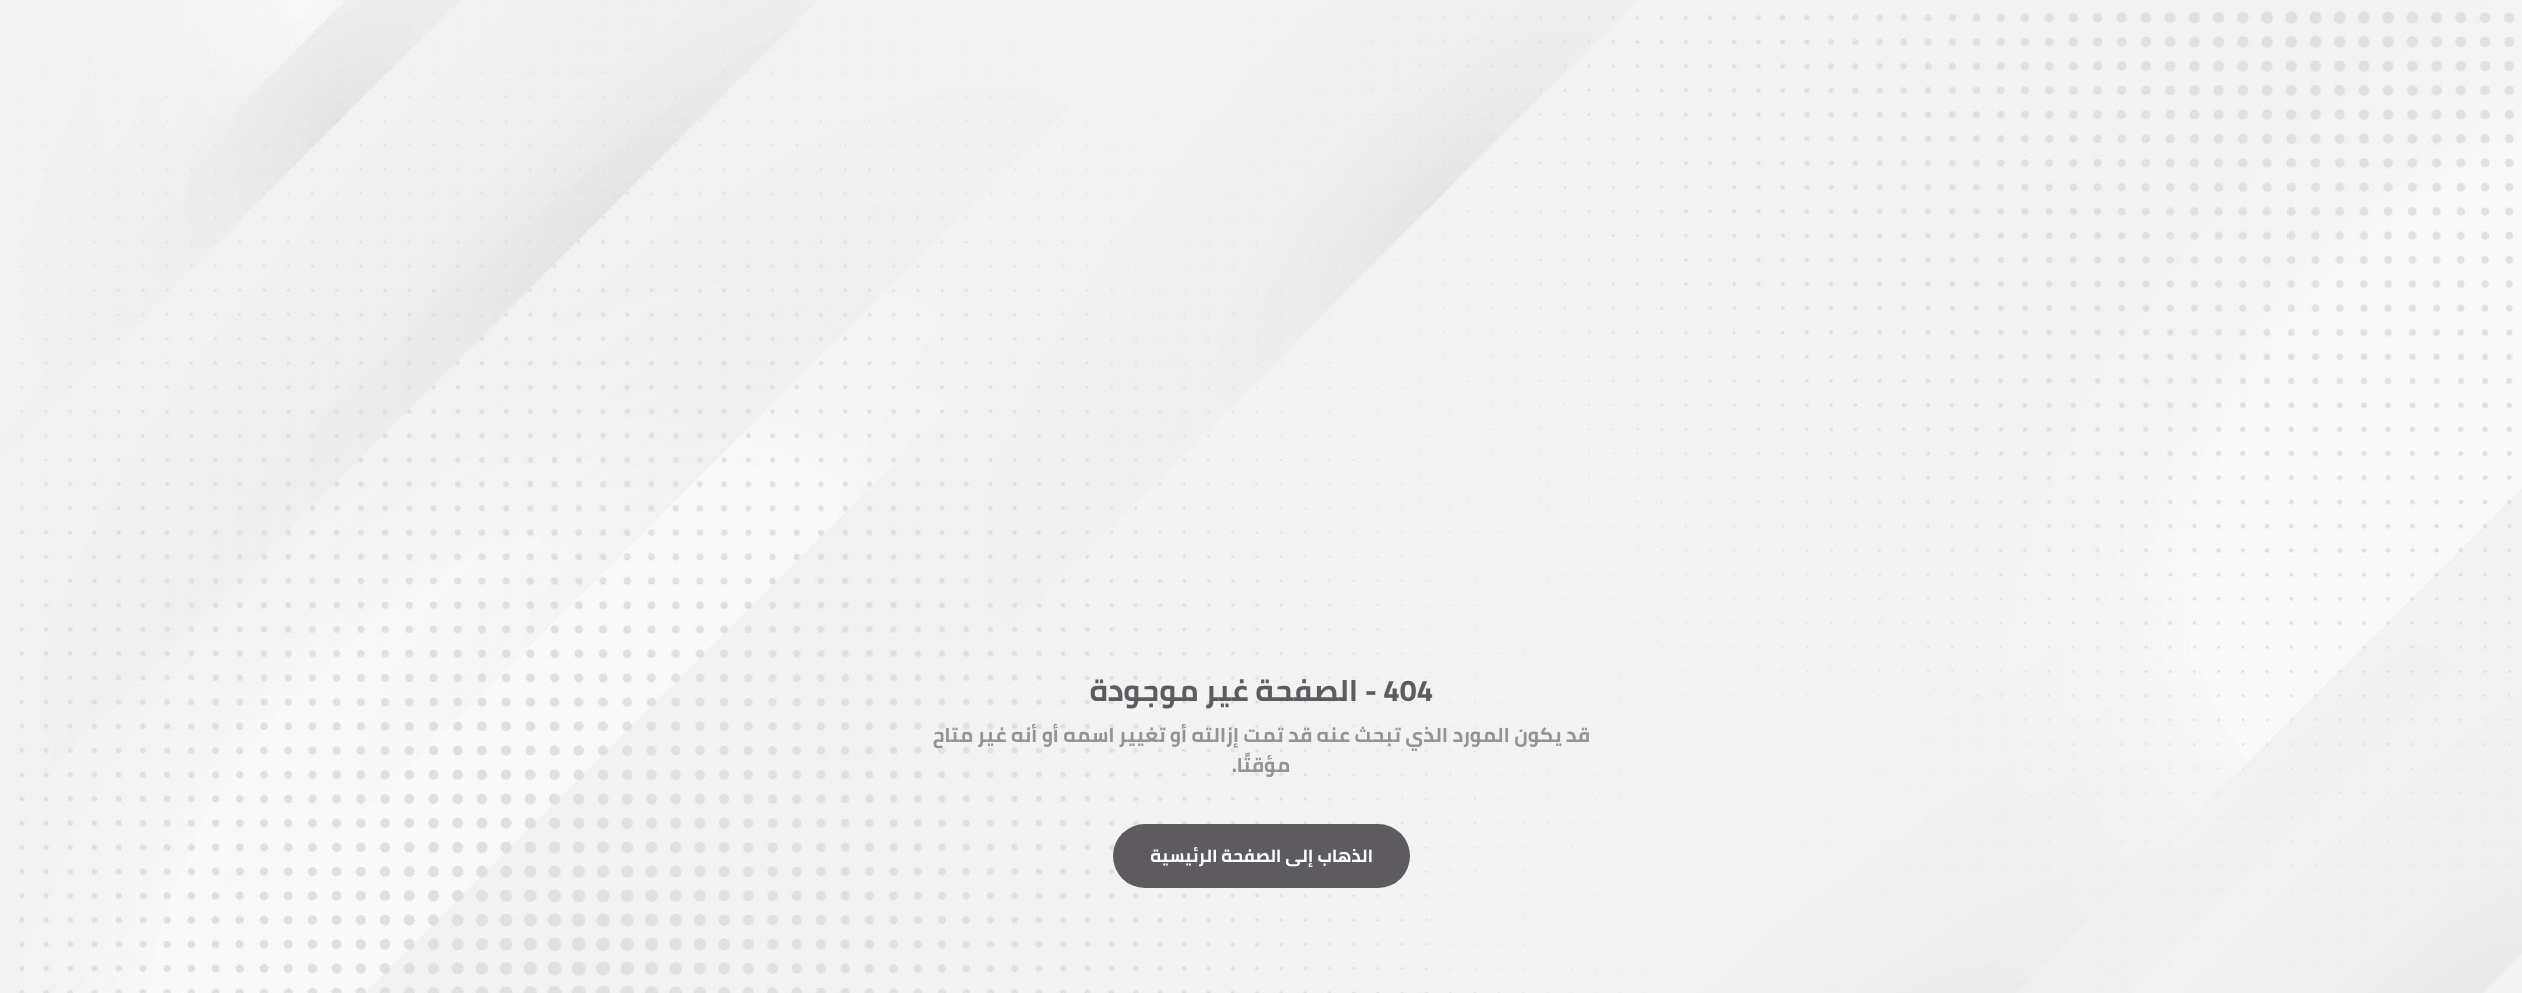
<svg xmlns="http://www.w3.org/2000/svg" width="2522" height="993">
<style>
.a{font:bold 30px Cairo;fill:#5d5b60}
.b{font:bold 30px Cairo;direction:rtl;fill:#5d5b60}
.c{font:bold 20px Cairo;direction:rtl;fill:#939393}
.d{font:bold 17.5px Cairo;direction:rtl;fill:#fff}
</style>
<rect width="100%" height="100%" fill="#fff"/>
<image href="1.png" x="0" y="0" width="2522" height="993"/>
<rect fill="#5d5b60" x="1113" y="824" width="297" height="64" rx="32"/>
<text class="a" x="1383" y="701">404</text>
<text class="b" x="1377" y="701">- الصفحة غير موجودة</text>
<text class="c" x="1590" y="742">قد يكون المورد الذي تبحث عنه قد تمت إزالته أو تغيير اسمه أو أنه غير متاح</text>
<text class="c" x="1290" y="772">مؤقتًا.</text>
<text class="d" x="1373" y="862">الذهاب إلى الصفحة الرئيسية</text>
</svg>
